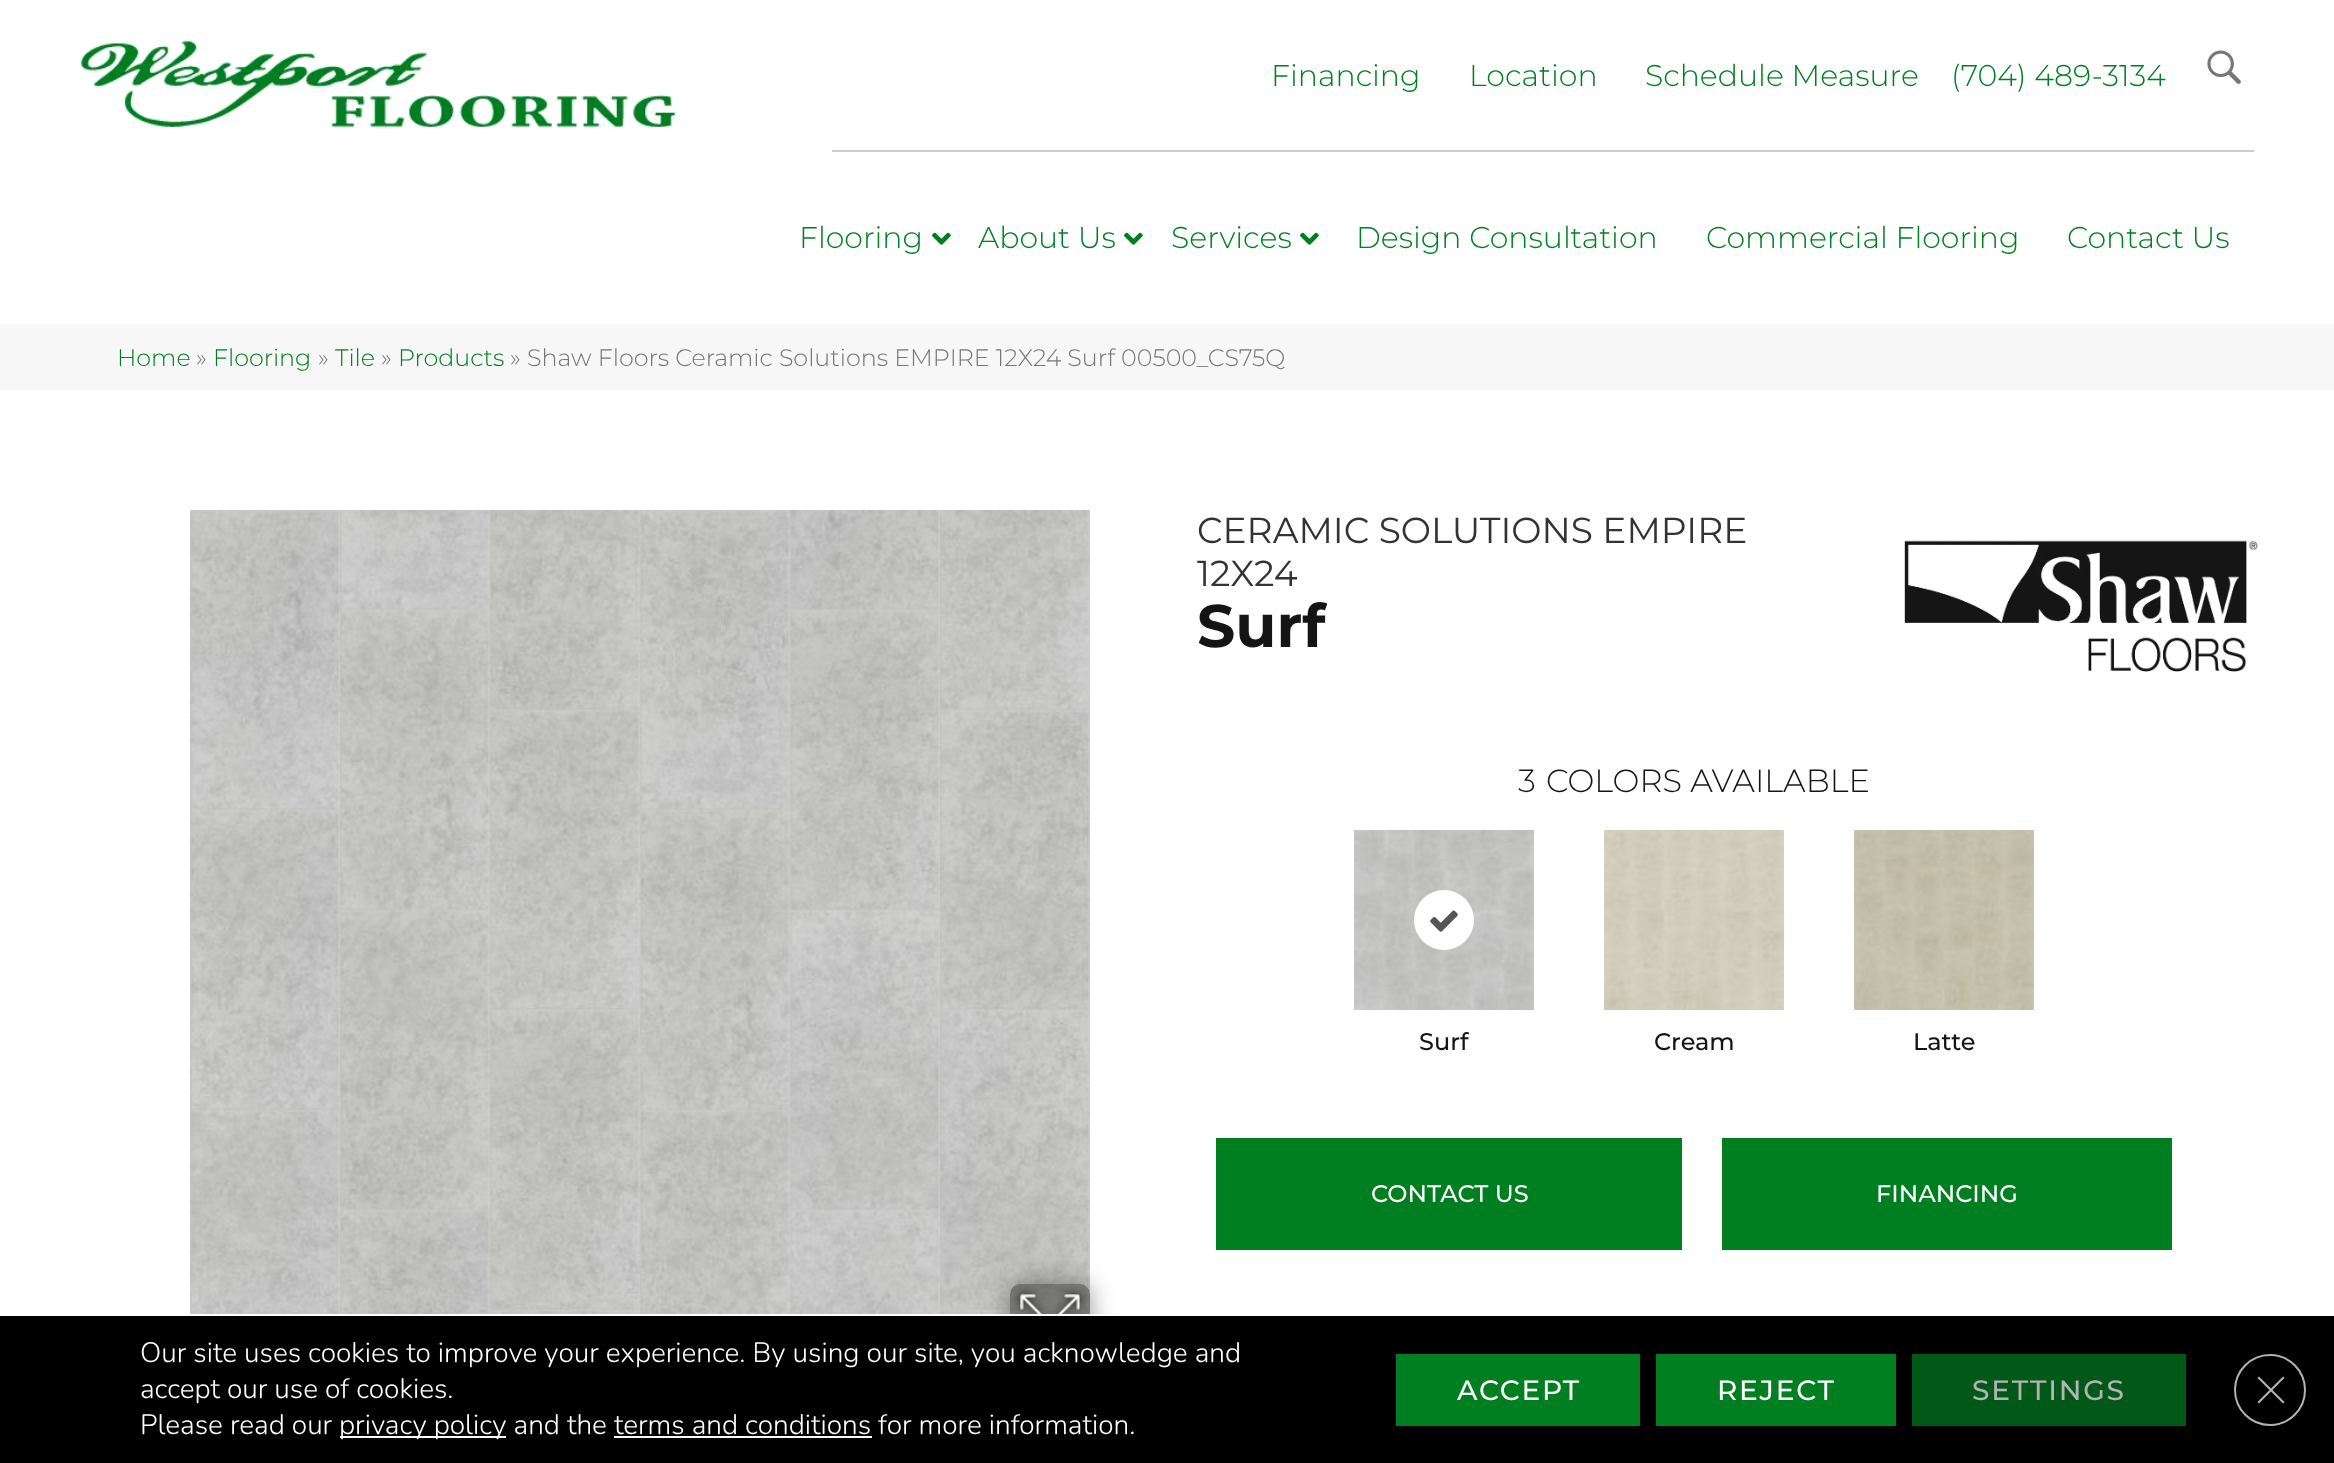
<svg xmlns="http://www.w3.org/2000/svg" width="2334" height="1463">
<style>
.a{font:300 30px Montserrat;fill:#007f21}
.b{font:300 23.8px Montserrat;fill:#007f21}
.c{font:300 23.8px Montserrat;fill:#767676}
.d{font:36px Montserrat;fill:#333}
.e{font:bold 60px Montserrat;fill:#141414}
.f{font:300 32px Montserrat;fill:#141414}
.g{font:500 24px Montserrat;fill:#141414}
.h{font:500 24px Montserrat;fill:#fff}
.i{font:300 28px Nunito;fill:#fff}
.j{font:500 28px Montserrat;letter-spacing:1.75px;fill:#fff}
.k{font:500 28px Montserrat;letter-spacing:1.75px;fill:#b3b3b3}
</style>
<defs>
<clipPath id="clip1"><path d="M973 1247h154v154h-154zm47 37h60c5.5 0 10 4.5 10 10v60c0 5.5-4.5 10-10 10h-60c-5.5 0-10-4.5-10-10v-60c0-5.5 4.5-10 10-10z" clip-rule="evenodd"/></clipPath>
</defs>
<rect width="100%" height="100%" fill="#fff"/>
<image href="1.png" x="80" y="40" width="596" height="88"/>
<image href="2.png" x="2207" y="50" width="34" height="34"/>
<path fill="#ccc" d="M832 150h1422v2H832z"/>
<image href="3.png" x="932" y="232" width="19" height="13"/>
<image href="3.png" x="1124" y="232" width="19" height="13"/>
<image href="3.png" x="1300" y="232" width="19" height="13"/>
<path fill="#f7f7f7" d="M0 324h2334v66H0z"/>
<image href="4.png" x="190" y="510" width="900" height="804"/>
<g clip-path="url(#clip1)">
<rect fill="#00000069" filter="blur(12px)" x="1010" y="1284" width="80" height="80" rx="10"/>
</g>
<rect fill="#00000066" x="1010" y="1284" width="80" height="80" rx="10"/>
<image href="5.png" x="1013" y="1287" width="74" height="27"/>
<image href="6.png" x="1904" y="540" width="354" height="132"/>
<image href="7.png" x="1354" y="830" width="180" height="180"/>
<circle fill="#fff" cx="1444" cy="920" r="30"/>
<image href="8.png" x="1430" y="910" width="28" height="22"/>
<image href="9.png" x="1604" y="830" width="180" height="180"/>
<image href="10.png" x="1854" y="830" width="180" height="180"/>
<path fill="#007f21" d="M1216 1138h466v112H1216z"/>
<path fill="#007f21" d="M1722 1138h450v112H1722z"/>
<path fill="#000" d="M0 1316h2334v147H0z"/>
<path fill="#fff" d="M986 1314h128v2H986z"/>
<path fill="#fff" d="M340 1436h166v2H340z"/>
<path fill="#fff" d="M614 1436h258v2H614z"/>
<path fill="#007f21" d="M1396 1354h244v72H1396z"/>
<path fill="#007f21" d="M1656 1354h240v72H1656z"/>
<path fill="#005917" d="M1912 1354h274v72H1912z"/>
<circle fill="none" stroke="#b3b3b3" stroke-width="2" cx="2270" cy="1390" r="35"/>
<path fill="#b3b3b3" d="M2283 1376.5l1.5 1.5l-25.5 25.5l-1.5-1.5z"/>
<path fill="#b3b3b3" d="M2257.5 1378l1.5-1.5l25.5 25.5l-1.5 1.5z"/>
<text class="a" x="1271" y="86">Financing</text>
<text class="a" x="1469" y="86">Location</text>
<text class="a" x="1645" y="86">Schedule Measure</text>
<text class="a" x="1951" y="86">(704) 489-3134</text>
<text class="a" x="799" y="248">Flooring</text>
<text class="a" x="978" y="248">About Us</text>
<text class="a" x="1171" y="248">Services</text>
<text class="a" x="1356" y="248">Design Consultation</text>
<text class="a" x="1706" y="248">Commercial Flooring</text>
<text class="a" x="2067" y="248">Contact Us</text>
<text class="b" x="117" y="366">Home</text>
<text class="c" x="196" y="366">»</text>
<text class="b" x="213" y="366">Flooring</text>
<text class="c" x="318" y="366">»</text>
<text class="b" x="335" y="366">Tile</text>
<text class="c" x="381" y="366">»</text>
<text class="b" x="398" y="366">Products</text>
<text class="c" x="510" y="366">» Shaw Floors Ceramic Solutions EMPIRE 12X24 Surf 00500_CS75Q</text>
<text class="d" x="1197" y="543">CERAMIC SOLUTIONS EMPIRE</text>
<text class="d" x="1197" y="586">12X24</text>
<text class="e" x="1197" y="647">Surf</text>
<text class="f" x="1518" y="792">3</text>
<text class="f" x="1546" y="792">COLORS AVAILABLE</text>
<text class="g" x="1419" y="1050">Surf</text>
<text class="g" x="1654" y="1050">Cream</text>
<text class="g" x="1913" y="1050">Latte</text>
<text class="h" x="1371" y="1202">CONTACT US</text>
<text class="h" x="1876" y="1202">FINANCING</text>
<text class="i" x="140" y="1362">Our site uses cookies to improve your experience. By using our site, you acknowledge and</text>
<text class="i" x="140" y="1398">accept our use of cookies.</text>
<text class="i" x="140" y="1434">Please read our</text>
<text class="i" x="339" y="1434">privacy policy and the terms and conditions for more information.</text>
<text class="j" x="1457" y="1400">ACCEPT</text>
<text class="j" x="1717" y="1400">REJECT</text>
<text class="k" x="1972" y="1400">SETTINGS</text>
</svg>
